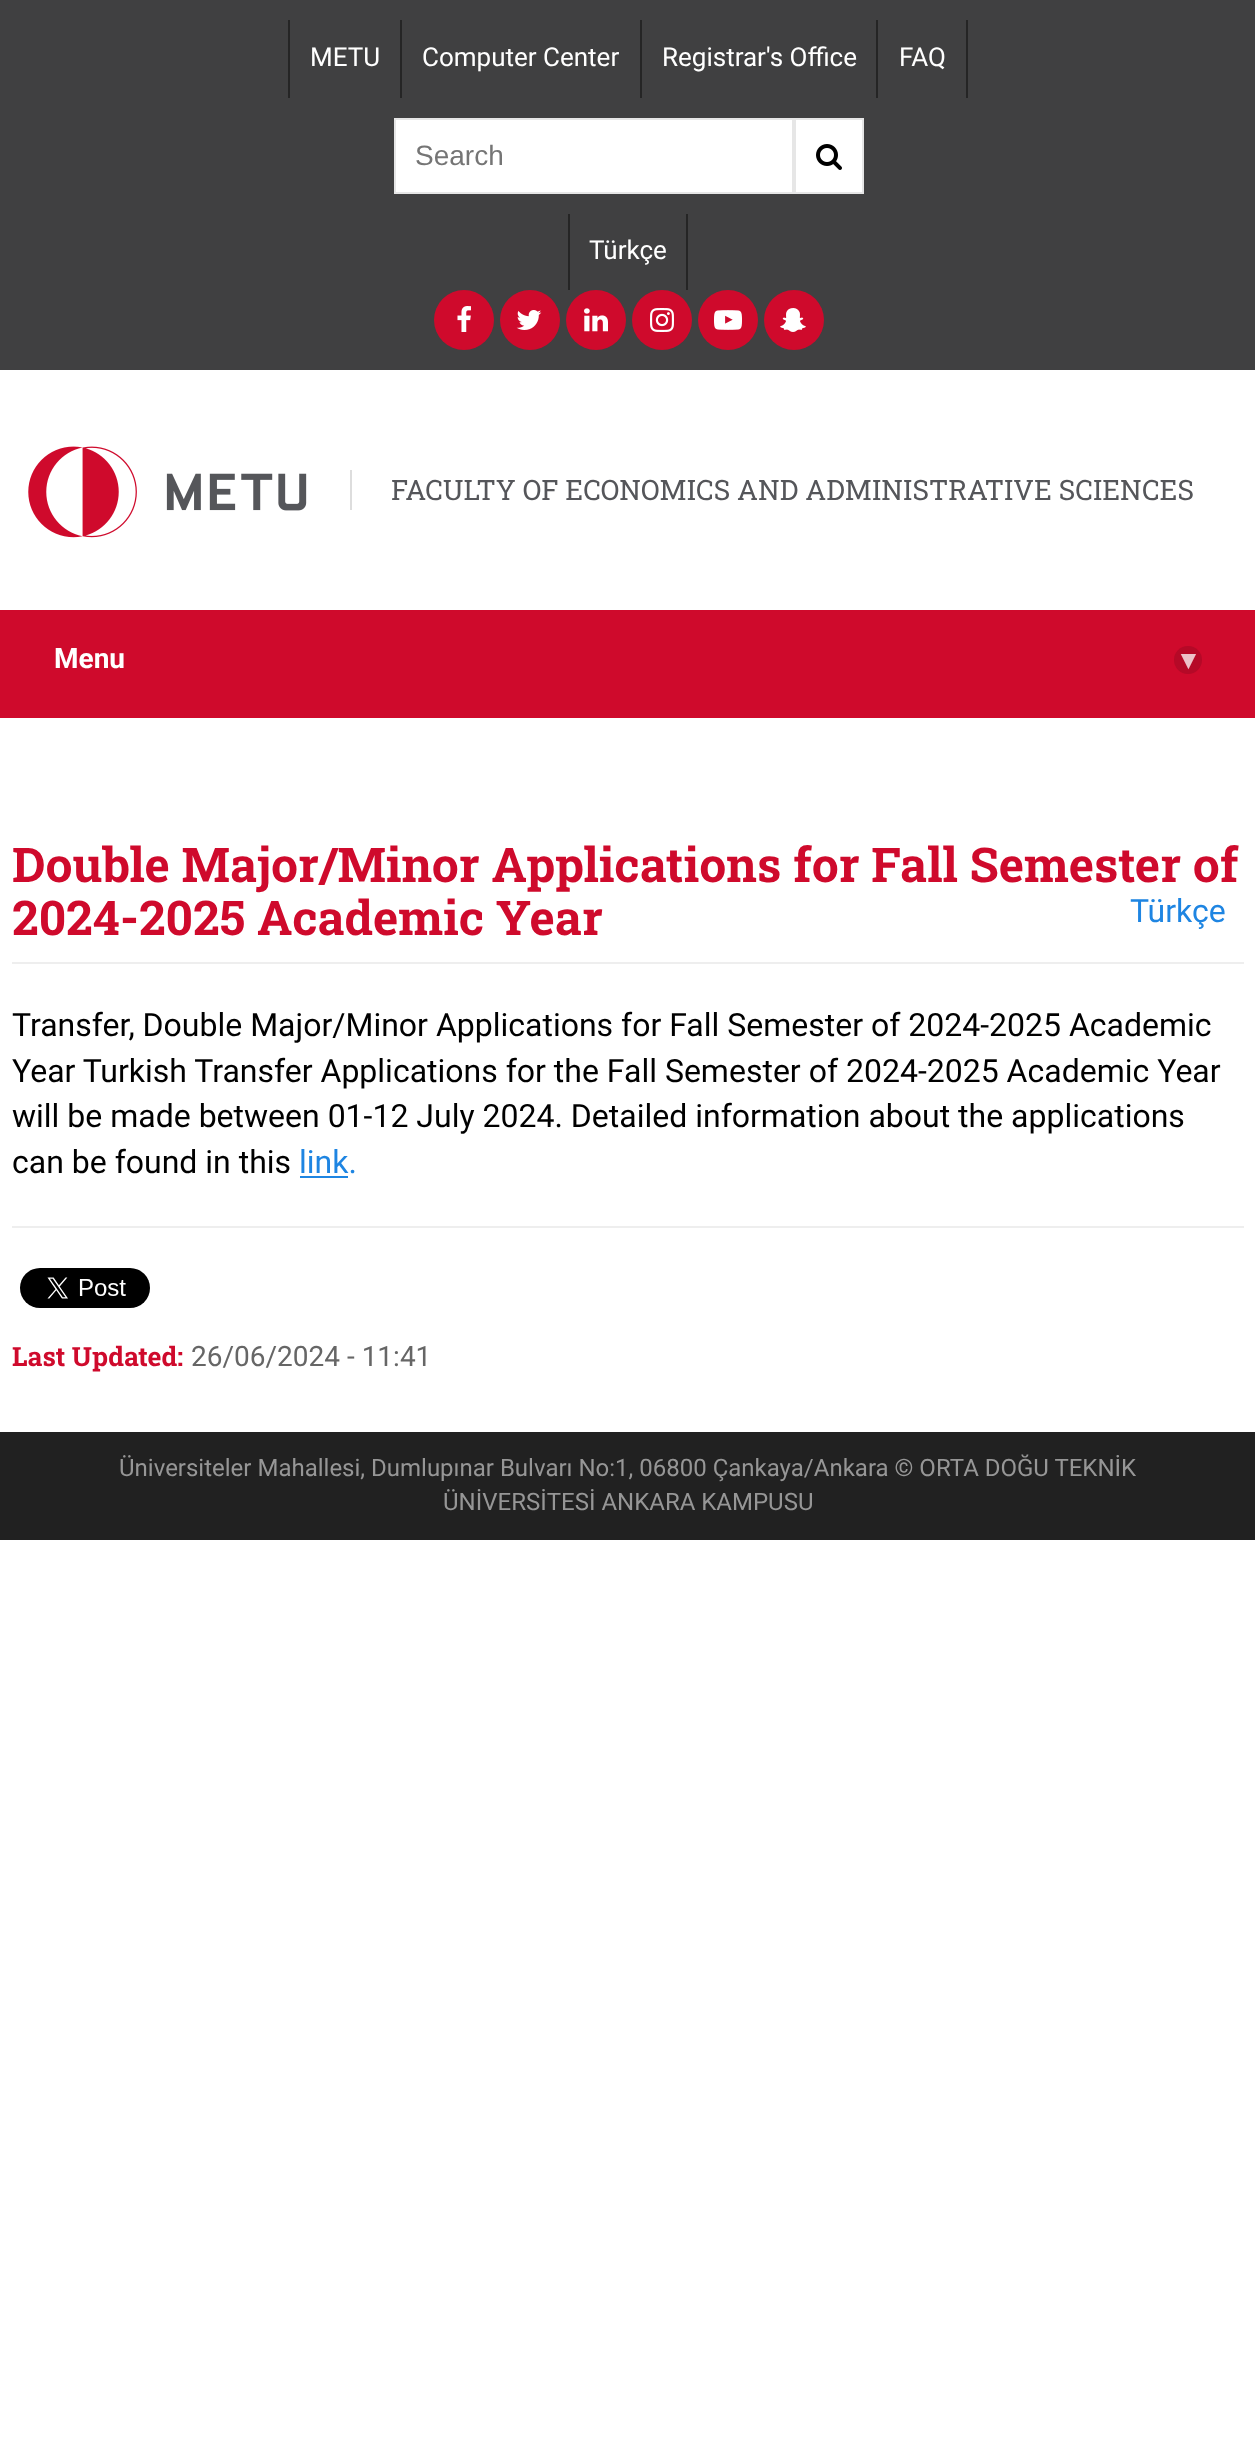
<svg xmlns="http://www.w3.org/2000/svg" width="1255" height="2461">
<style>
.a{font:26px Roboto;fill:#fff}
.b{font:28px Liberation Sans;fill:#757575}
.c{font:28px Roboto Slab;fill:#55565a}
.d{font:bold 28px Roboto;fill:#fff}
.e{font:bold 28px DejaVu Sans;fill:#edc2c9}
.f{font:bold 48px Roboto Slab;fill:#cf0a2c}
.g{font:32px Roboto;fill:#1e85e2}
.h{font:32px Roboto;fill:#000}
.i{font:bold 26.5px Roboto Slab;fill:#cf0a2c}
.j{font:28px Roboto;fill:#666}
.k{font:24px Roboto;fill:#969696}
</style>
<rect width="100%" height="100%" fill="#fff"/>
<path fill="#404041" d="M0 0h1255v370H0z"/>
<path fill="#252525" d="M400 20h2v78H400z"/>
<path fill="#252525" d="M288 20h2v78H288z"/>
<path fill="#252525" d="M640 20h2v78H640z"/>
<path fill="#252525" d="M876 20h2v78H876z"/>
<path fill="#252525" d="M966 20h2v78H966z"/>
<path fill="#fff" stroke="#e6e6e6" stroke-width="2" d="M395 119h398v74H395z"/>
<path fill="#fff" stroke="#e6e6e6" stroke-width="2" d="M795 119h68v74H795z"/>
<image href="1.png" x="816" y="144" width="26" height="26"/>
<path fill="#252525" d="M686 214h2v76H686z"/>
<path fill="#252525" d="M568 214h2v76H568z"/>
<circle fill="#cf0a2c" cx="464" cy="320" r="30"/>
<image href="2.png" x="457" y="306" width="14" height="26"/>
<circle fill="#cf0a2c" cx="530" cy="320" r="30"/>
<image href="3.png" x="516" y="310" width="26" height="20"/>
<circle fill="#cf0a2c" cx="596" cy="320" r="30"/>
<image href="4.png" x="584" y="308" width="24" height="24"/>
<circle fill="#cf0a2c" cx="662" cy="320" r="30"/>
<image href="5.png" x="650" y="308" width="24" height="24"/>
<circle fill="#cf0a2c" cx="728" cy="320" r="30"/>
<image href="6.png" x="714" y="310" width="28" height="20"/>
<circle fill="#cf0a2c" cx="794" cy="320" r="30"/>
<image href="7.png" x="780" y="308" width="26" height="24"/>
<image href="8.png" x="28" y="446" width="279" height="92"/>
<path fill="#ddd" d="M350 470h2v40H350z"/>
<path fill="#cf0a2c" d="M0 610h1255v108H0z"/>
<circle fill="#b50927" cx="1188" cy="660" r="14"/>
<path fill="#eee" d="M12 962h1232v2H12z"/>
<path fill="#1e85e2" d="M300 1176h48v2H300z"/>
<path fill="#eee" d="M12 1226h1232v2H12z"/>
<image href="9.png" x="20" y="1268" width="130" height="40"/>
<path fill="#212121" d="M0 1432h1255v108H0z"/>
<text class="a" x="310" y="66">METU</text>
<text class="a" x="422" y="66">Computer Center</text>
<text class="a" x="662" y="66">Registrar's Office</text>
<text class="a" x="899" y="66">FAQ</text>
<text class="b" x="415" y="165">Search</text>
<text class="a" x="589" y="259">Türkçe</text>
<text class="c" x="391" y="500">FACULTY OF ECONOMICS AND ADMINISTRATIVE SCIENCES</text>
<text class="d" x="54" y="668">Menu</text>
<text class="e" x="1181" y="669">▾</text>
<text class="f" x="12" y="882">Double Major/Minor Applications for Fall Semester of</text>
<text class="f" x="12" y="935">2024-2025 Academic Year</text>
<text class="g" x="1130" y="922">Türkçe</text>
<text class="h" x="12" y="1036">Transfer, Double Major/Minor Applications for Fall Semester of 2024-2025 Academic</text>
<text class="h" x="12" y="1082">Year Turkish Transfer Applications for the Fall Semester of 2024-2025 Academic Year</text>
<text class="h" x="12" y="1127">will be made between 01-12 July 2024. Detailed information about the applications</text>
<text class="h" x="12" y="1173">can be found in this</text>
<text class="g" x="299" y="1173">link.</text>
<text class="i" x="12" y="1366">Last Updated:</text>
<text class="j" x="191" y="1366">26/06/2024 - 11:41</text>
<text class="k" x="119" y="1476">Üniversiteler Mahallesi, Dumlupınar Bulvarı No:1, 06800 Çankaya/Ankara © ORTA DOĞU TEKNİK</text>
<text class="k" x="443" y="1510">ÜNİVERSİTESİ ANKARA KAMPUSU</text>
</svg>
